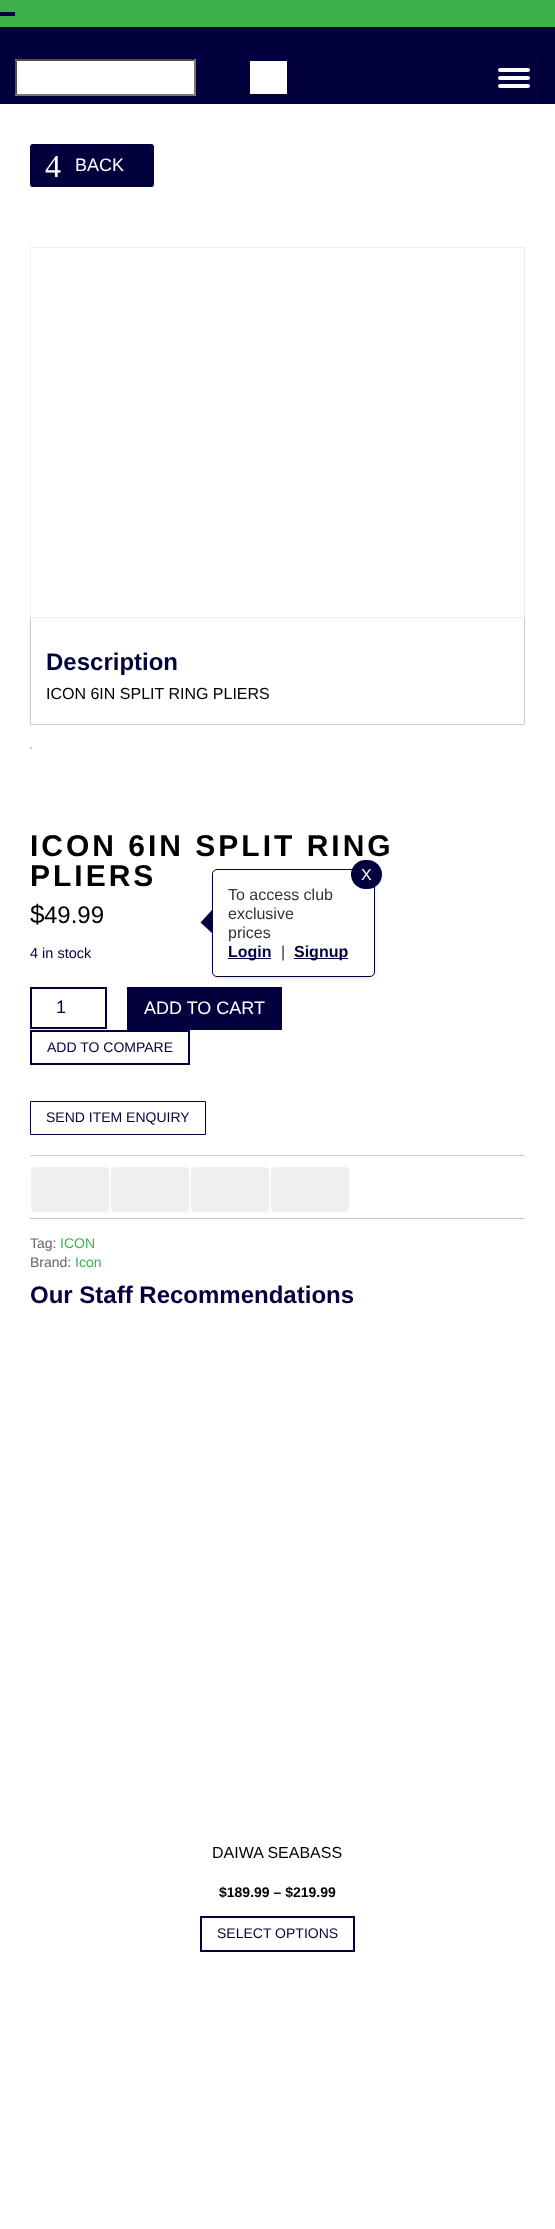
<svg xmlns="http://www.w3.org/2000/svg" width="555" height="2229">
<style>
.a{font:32px Liberation Serif;fill:#fff}
.b{font:18px Liberation Sans;fill:#fff}
.c{font:bold 24px Liberation Sans;fill:#02003d}
.d{font:16px Liberation Sans;fill:#000}
.e{font:bold 30px Liberation Sans;letter-spacing:3px;fill:#000}
.f{font:26px Liberation Sans;fill:#000}
.g{font:24px Liberation Sans;fill:#000}
.h{font:16px Liberation Sans;fill:#fff}
.i{font:16px Liberation Sans;fill:#333}
.j{font:bold 16px Liberation Sans;fill:#02003d}
.k{font:14.5px Liberation Sans;fill:#02003d}
.l{font:18px Liberation Sans;fill:#02003d}
.m{font:14px Liberation Sans;fill:#02003d}
.n{font:14px Liberation Sans;fill:#666}
.o{font:14px Liberation Sans;fill:#3db049}
.p{font:bold 14px Liberation Sans;fill:#000}
</style>
<rect width="100%" height="100%" fill="#fff"/>
<path fill="#3db049" d="M0 0h555v27H0z"/>
<path fill="#02013d" d="M0 27h555v25H0z"/>
<path fill="#02013d" d="M0 12h15v4H0z"/>
<path fill="#01003a" d="M0 52h555v52H0z"/>
<rect fill="#02013d" x="15" y="52" width="525" height="52" rx="2"/>
<path fill="#fff" d="M15 59h181v37H15z"/>
<path fill="#4f4f4f" d="M15 59h181l-2 2h-177z"/>
<path fill="#767676" d="M196 59v37l-2-2v-33z"/>
<path fill="#767676" d="M196 96h-181l2-2h177z"/>
<path fill="#4f4f4f" d="M15 96v-37l2 2v33z"/>
<path fill="#fff" d="M250 61h37v33H250z"/>
<rect fill="#fff" x="498" y="68" width="32" height="4" rx="2"/>
<rect fill="#fff" x="498" y="76" width="32" height="4" rx="2"/>
<rect fill="#fff" x="498" y="84" width="32" height="4" rx="2"/>
<rect fill="#02013d" x="30" y="144" width="124" height="43" rx="3"/>
<path fill="none" stroke="#cacaca" d="M30.5 247.5h494v477H30.5z"/>
<path fill="none" stroke="#efefef" d="M30.5 247.5h494v370H30.5z"/>
<path fill="#cacaca" d="M30 747h2v2H30z"/>
<path fill="#02003d" d="M212 910l1 24l-12.5-11.5z"/>
<rect fill="#0000001a" filter="blur(2px)" x="212" y="871" width="163" height="108" rx="5"/>
<rect fill="#fff" stroke="#02003d" x="212.5" y="869.5" width="162" height="107" rx="4.5"/>
<rect fill="#02003d" x="351" y="860" width="31" height="29" rx="14.5"/>
<path fill="#02003d" d="M228 958h43v1H228z"/>
<path fill="#02003d" d="M294 958h54v1H294z"/>
<path fill="none" stroke="#02003d" stroke-width="2" d="M31 988h75v40H31z"/>
<path fill="#02003d" d="M127 987h155v43H127z"/>
<path fill="none" stroke="#02003d" stroke-width="2" d="M31 1031h158v33H31z"/>
<path fill="none" stroke="#02003d" d="M30.5 1101.5h175v33H30.5z"/>
<path fill="#cacaca" d="M30 1155h495v1H30z"/>
<path fill="#cacaca" d="M30 1218h495v1H30z"/>
<rect fill="#efefef" stroke="#fff" x="30.5" y="1166.5" width="79" height="46" rx="4.5"/>
<rect fill="#efefef" stroke="#fff" x="110.5" y="1166.5" width="79" height="46" rx="4.5"/>
<rect fill="#efefef" stroke="#fff" x="190.5" y="1166.5" width="79" height="46" rx="4.5"/>
<rect fill="#efefef" stroke="#fff" x="270.5" y="1166.5" width="79" height="46" rx="4.5"/>
<path fill="none" stroke="#02003d" stroke-width="2" d="M201 1917h153v34H201z"/>
<text class="a" x="45" y="177">4</text>
<text class="b" x="75" y="171">BACK</text>
<text class="c" x="46" y="670">Description</text>
<text class="d" x="46" y="699">ICON 6IN SPLIT RING PLIERS</text>
<text class="e" x="30" y="856">ICON 6IN SPLIT RING</text>
<text class="e" x="30" y="886">PLIERS</text>
<text class="f" x="30" y="923">$</text>
<text class="g" x="44" y="923">49.99</text>
<text class="h" x="361" y="880">X</text>
<text class="i" x="228" y="900">To access club</text>
<text class="i" x="228" y="919">exclusive</text>
<text class="i" x="228" y="938">prices</text>
<text class="j" x="228" y="957">Login</text>
<text class="i" x="281" y="957">|</text>
<text class="j" x="294" y="957">Signup</text>
<text class="k" x="30" y="958">4 in stock</text>
<text class="l" x="56" y="1013">1</text>
<text class="b" x="144" y="1014">ADD TO CART</text>
<text class="m" x="47" y="1052">ADD TO COMPARE</text>
<text class="m" x="46" y="1122">SEND ITEM ENQUIRY</text>
<text class="n" x="30" y="1248">Tag:</text>
<text class="o" x="60" y="1248">ICON</text>
<text class="n" x="30" y="1267">Brand:</text>
<text class="o" x="75" y="1267">Icon</text>
<text class="c" x="30" y="1303">Our Staff Recommendations</text>
<text class="d" x="212" y="1858">DAIWA SEABASS</text>
<text class="p" x="219" y="1897">$189.99 – $219.99</text>
<text class="m" x="217" y="1938">SELECT OPTIONS</text>
</svg>
